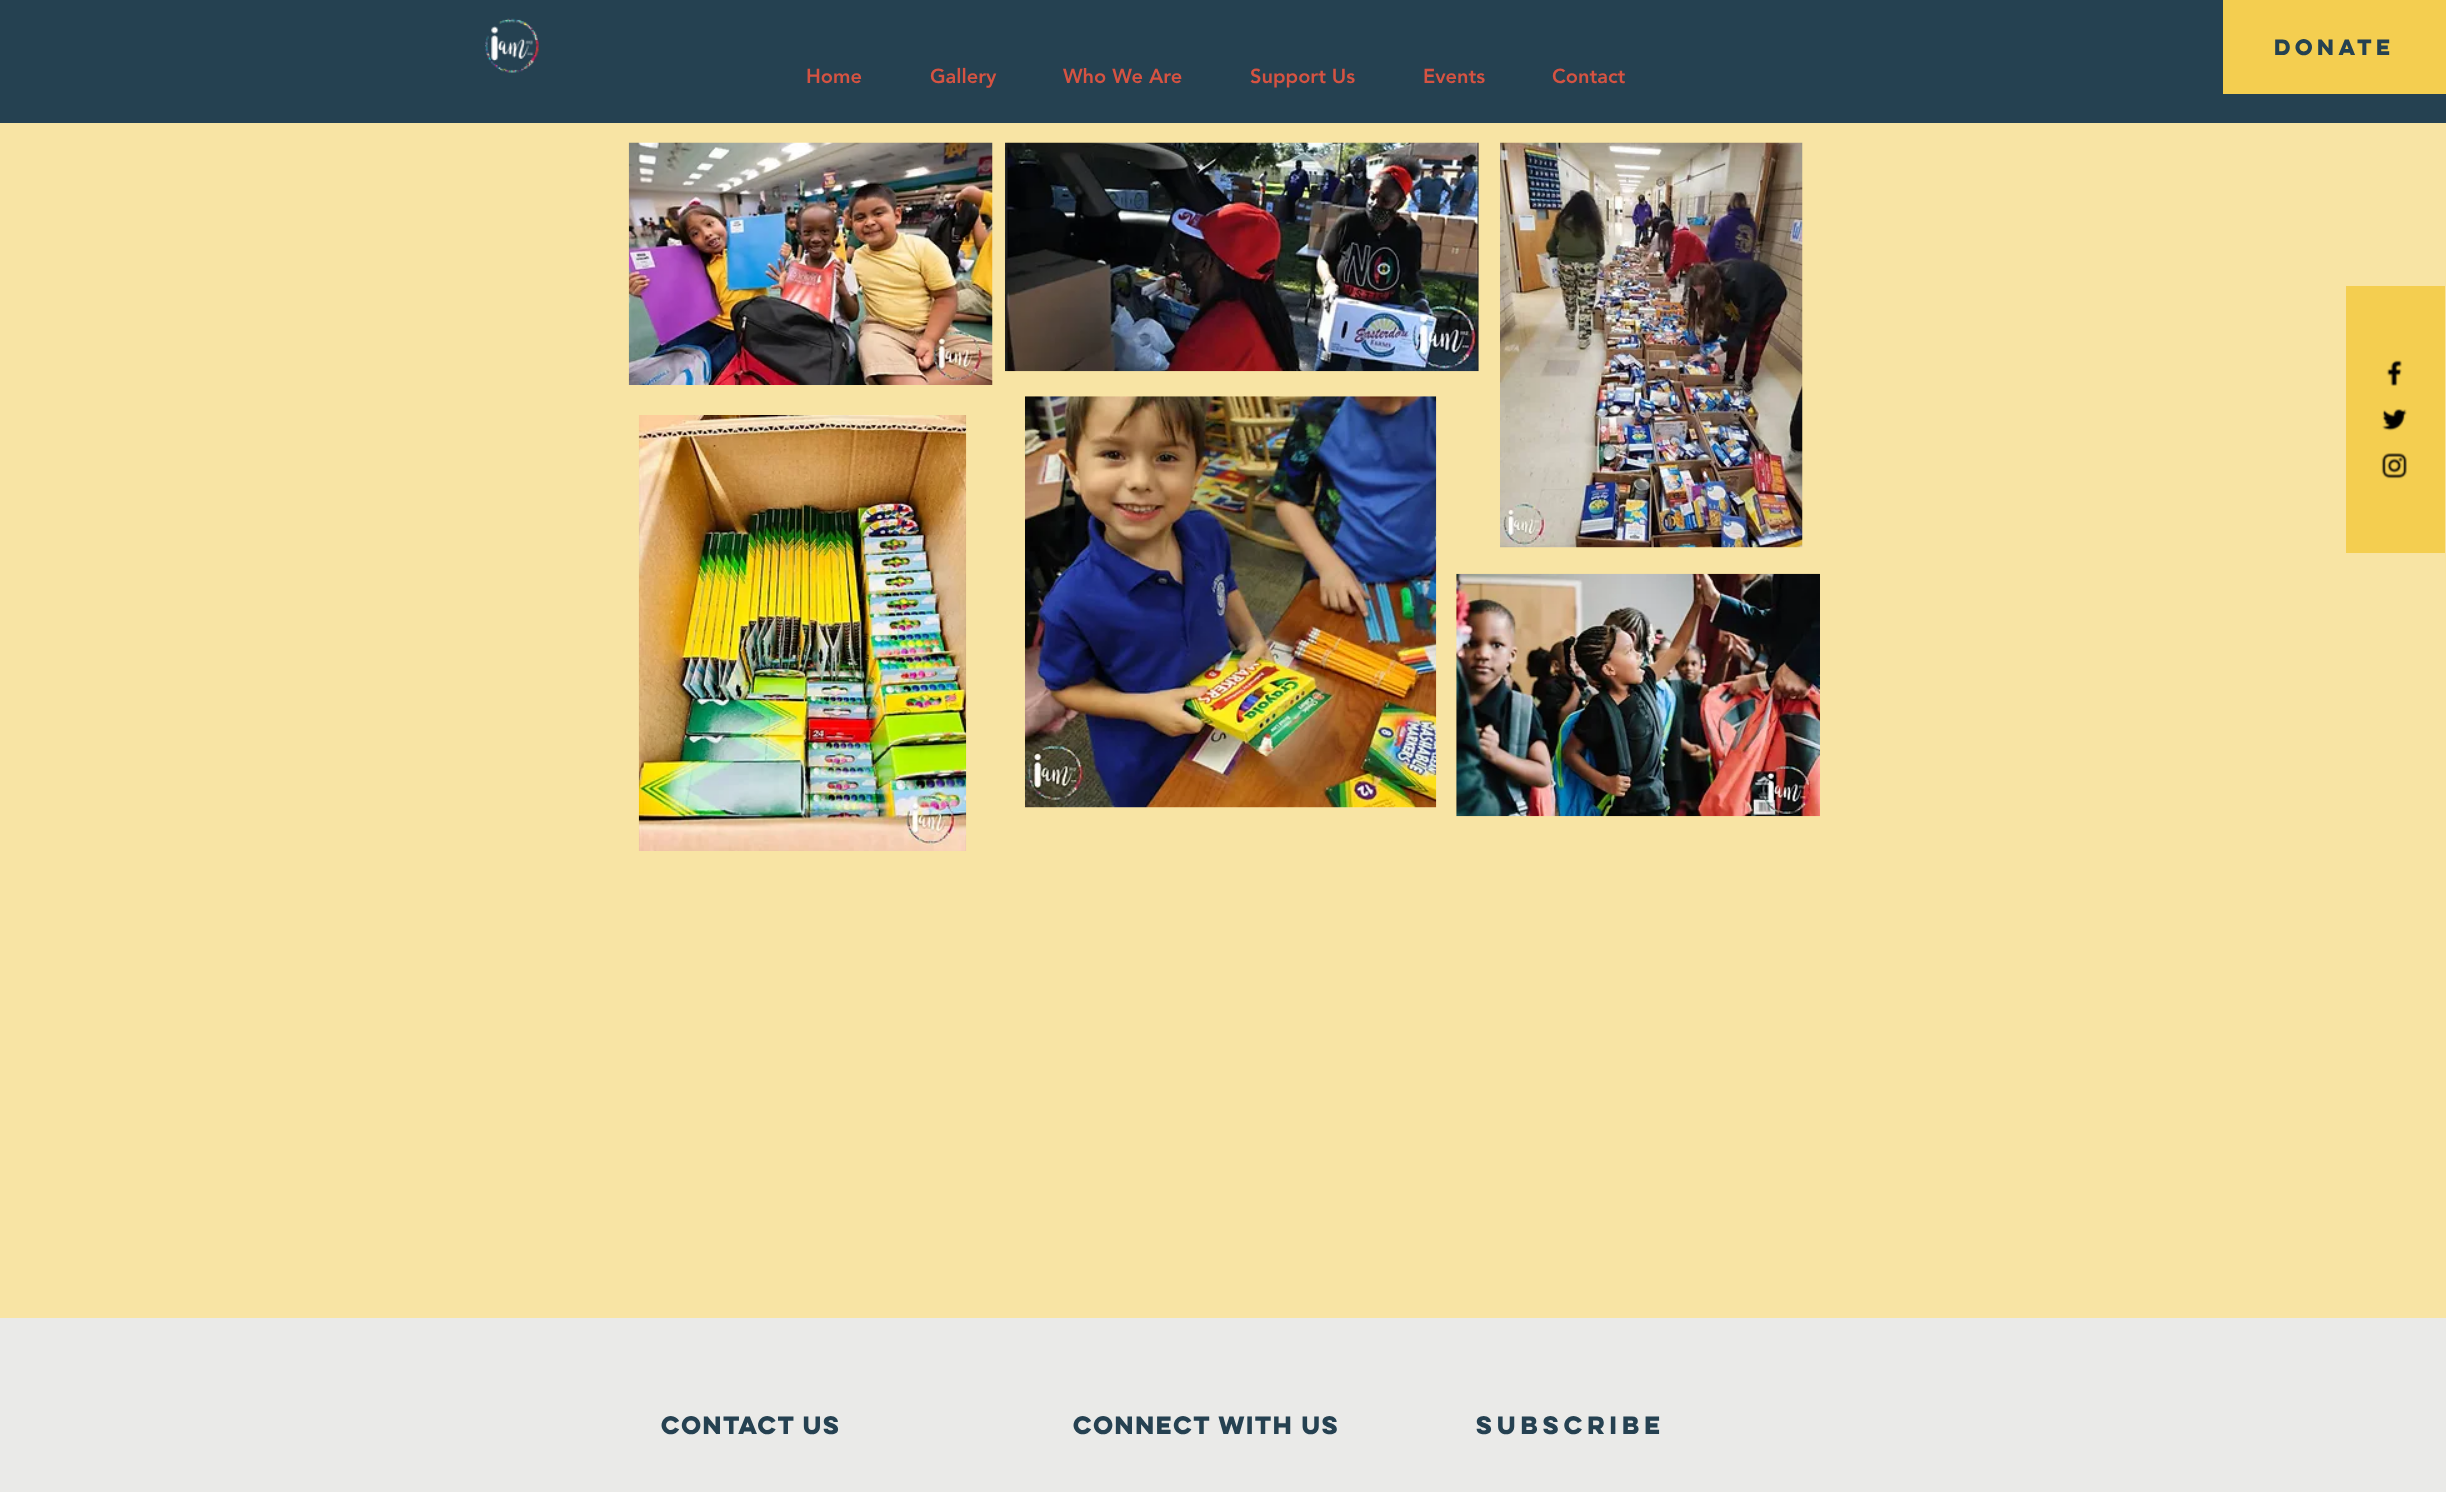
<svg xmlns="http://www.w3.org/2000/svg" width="2446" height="1492">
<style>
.a{font:bold 20px 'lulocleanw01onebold';fill:#254151}
.b{font:900 20px 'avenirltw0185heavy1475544';fill:#d55342}
.c{font:bold 22.5px 'lulocleanw01onebold';letter-spacing:-3.4px;fill:#254151}
.d{font:bold 22.5px 'lulocleanw01onebold';fill:#254151}
</style>
<rect width="100%" height="100%" fill="#f8e4a4"/>
<path fill="#254151" d="M0 0h2446v123H0z"/>
<path fill="#f4ce50" d="M2223 0h223v94H2223z"/>
<path fill="#f4ce50" d="M2346 286h99v267H2346z"/>
<image href="1.png" x="2386" y="360" width="16" height="26"/>
<image href="2.png" x="2382" y="409" width="25" height="22"/>
<image href="3.png" x="2381" y="453" width="26" height="26"/>
<image href="4.png" x="485" y="18" width="54" height="55"/>
<image href="5.png" x="628" y="142" width="365" height="243"/>
<image href="6.png" x="1005" y="142" width="474" height="230"/>
<image href="7.png" x="1500" y="142" width="303" height="406"/>
<image href="8.png" x="638" y="415" width="329" height="436"/>
<image href="9.png" x="1025" y="396" width="412" height="412"/>
<image href="10.png" x="1456" y="573" width="364" height="244"/>
<path fill="#eaeae8" d="M0 1318h2446v174H0z"/>
<text class="a" x="2274" y="55">DONATE</text>
<text class="b" x="806" y="83">Home</text>
<text class="b" x="930" y="83">Gallery</text>
<text class="b" x="1063" y="83">Who We Are</text>
<text class="b" x="1250" y="83">Support Us</text>
<text class="b" x="1423" y="83">Events</text>
<text class="b" x="1552" y="83">Contact</text>
<text class="c" x="661" y="1434">Contact Us</text>
<text class="c" x="1073" y="1434">Connect with us</text>
<text class="d" x="1476" y="1434">SUBSCRIBE</text>
</svg>
